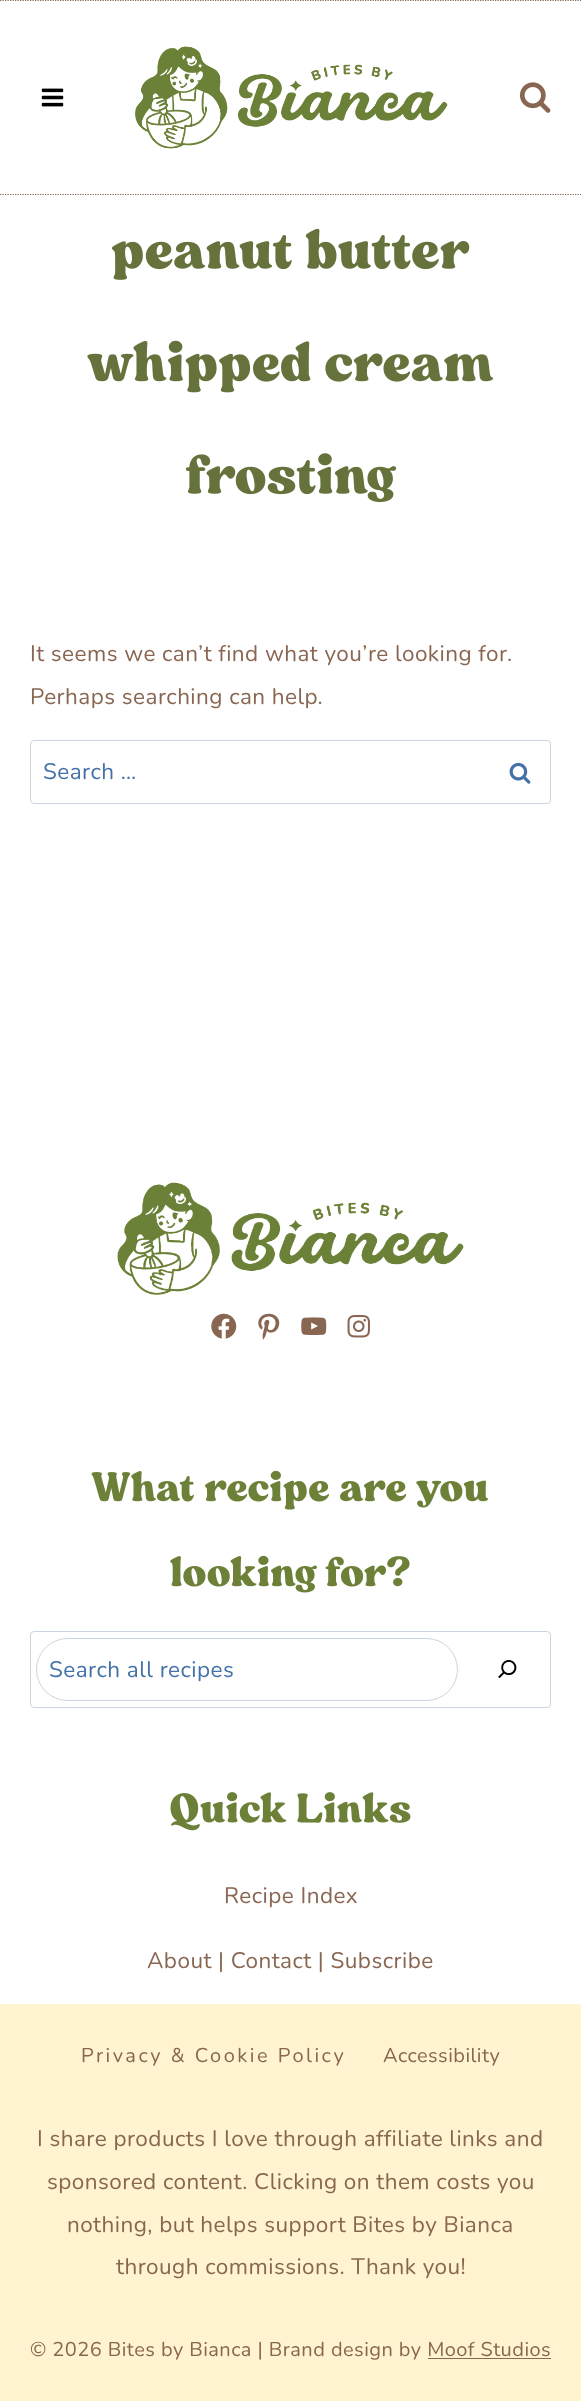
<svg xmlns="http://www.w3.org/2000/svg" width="581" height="2401">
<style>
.a{font:22.5px Nunito;letter-spacing:0.45px;fill:#896652}
.b{font:22.5px Nunito;letter-spacing:0.45px;fill:#4472a8}
.c{font:20px Nunito;letter-spacing:2.5px;fill:#896652}
.d{font:20px Nunito;letter-spacing:0.45px;fill:#896652}
</style>
<rect width="100%" height="100%" fill="#fff"/>
<path fill="none" stroke="#896652" stroke-width="1.2" stroke-dasharray="1.25 1.25" d="M0 .5h581"/>
<path fill="none" stroke="#896652" stroke-width="1.2" stroke-dasharray="1.25 1.25" d="M0 194.5h581"/>
<image href="1.png" x="41" y="88" width="23" height="19"/>
<image href="2.png" x="135" y="46" width="313" height="103"/>
<image href="3.png" x="519" y="82" width="32" height="31"/>
<image href="4.png" x="111" y="228" width="359" height="52"/>
<image href="5.png" x="87" y="340" width="407" height="53"/>
<image href="6.png" x="185" y="453" width="212" height="50"/>
<rect fill="none" stroke="#cbd5e0" x="30.5" y="740.5" width="520" height="63" rx="3.5"/>
<image href="7.png" x="509" y="762" width="22" height="22"/>
<image href="8.png" x="117" y="1182" width="347" height="113"/>
<image href="9.png" x="211" y="1313" width="26" height="26"/>
<image href="10.png" x="258" y="1313" width="22" height="27"/>
<image href="11.png" x="301" y="1317" width="26" height="19"/>
<image href="12.png" x="347" y="1315" width="23" height="23"/>
<image href="13.png" x="91" y="1470" width="398" height="40"/>
<image href="14.png" x="170" y="1555" width="240" height="38"/>
<rect fill="none" stroke="#cbd5e0" x="30.5" y="1631.5" width="520" height="76" rx="3.5"/>
<rect fill="none" stroke="#cbd5e0" x="36.5" y="1638.5" width="421" height="62" rx="31"/>
<image href="15.png" x="498" y="1660" width="19" height="19"/>
<image href="16.png" x="170" y="1792" width="241" height="39"/>
<path fill="#fff4cf" d="M0 2004h581v397H0z"/>
<path fill="#896652" d="M428 2358h123v1H428z"/>
<text class="a" x="30" y="661">It seems we can’t find what you’re looking for.</text>
<text class="a" x="30" y="704">Perhaps searching can help.</text>
<text class="b" x="43" y="779">Search …</text>
<text class="b" x="49" y="1677">Search all recipes</text>
<text class="a" x="224" y="1903">Recipe Index</text>
<text class="a" x="147" y="1968">About | Contact | Subscribe</text>
<text class="c" x="81" y="2062">Privacy &amp; Cookie Policy</text>
<text class="d" x="383" y="2062">Accessibility</text>
<text class="a" x="37" y="2146">I share products I love through affiliate links and</text>
<text class="a" x="47" y="2189">sponsored content. Clicking on them costs you</text>
<text class="a" x="67" y="2232">nothing, but helps support Bites by Bianca</text>
<text class="a" x="116" y="2274">through commissions. Thank you!</text>
<text class="d" x="30" y="2356">© 2026 Bites by Bianca | Brand design by Moof Studios</text>
</svg>
